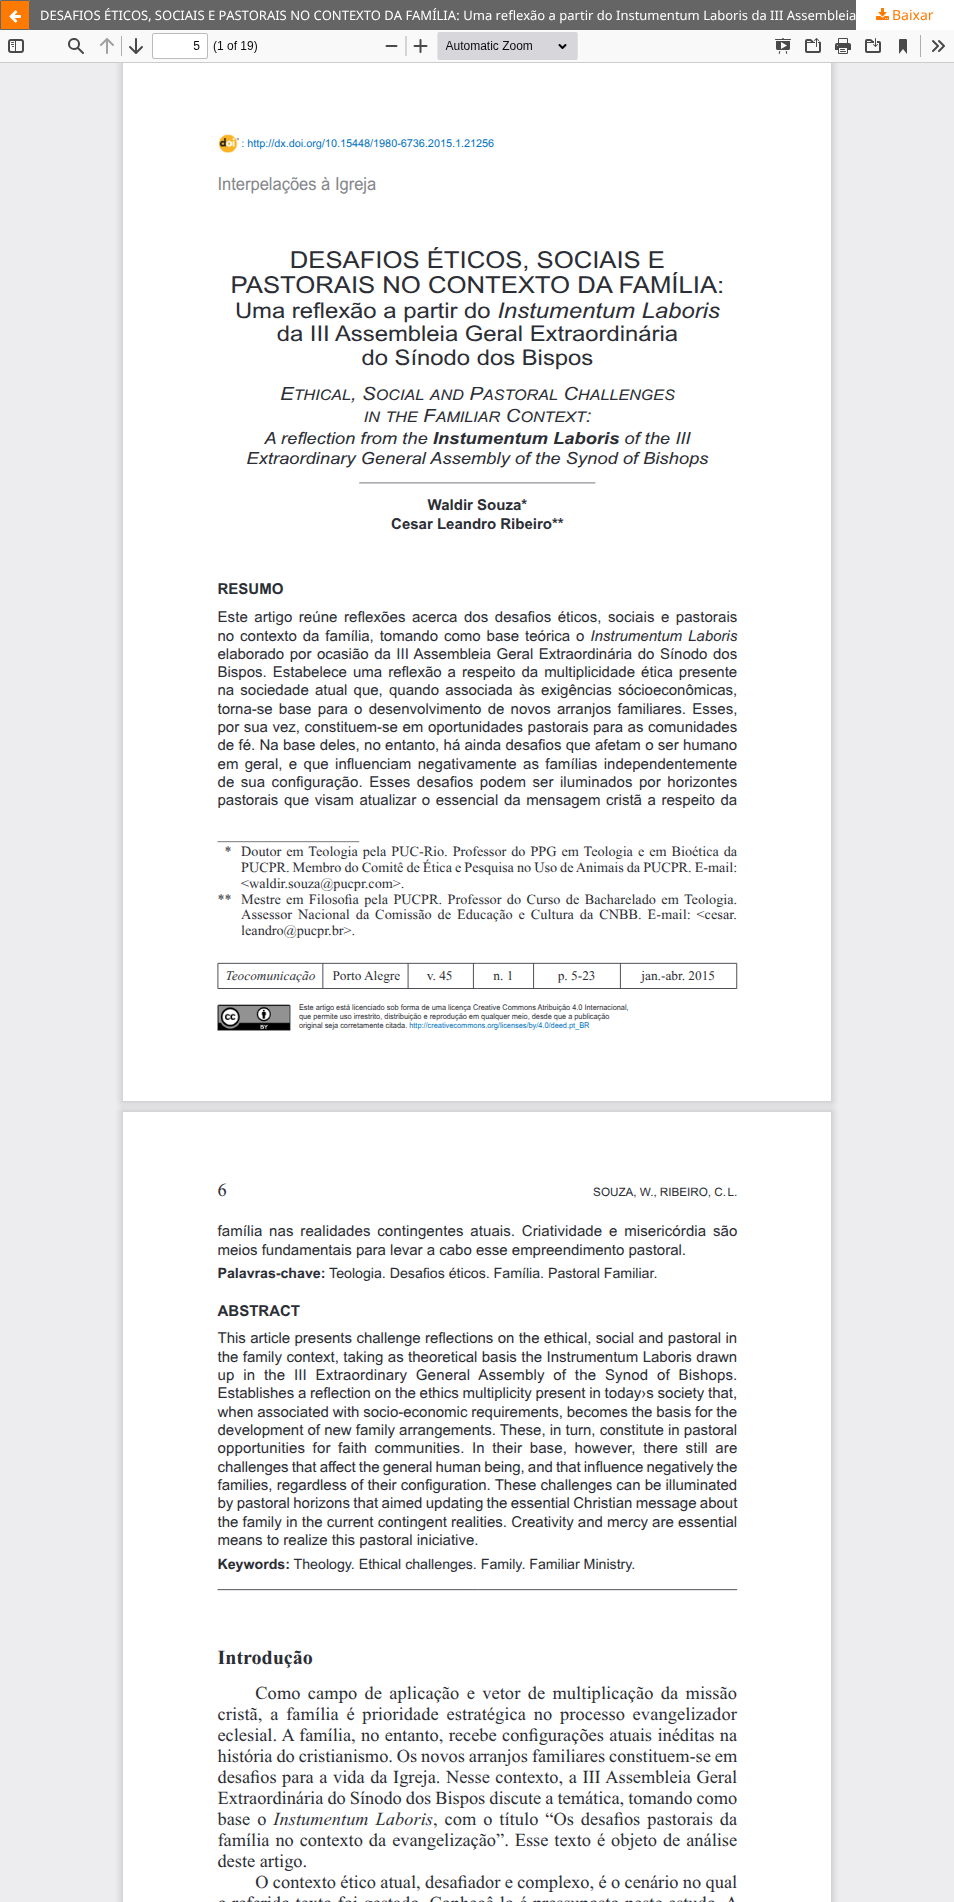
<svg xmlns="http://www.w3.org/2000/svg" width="954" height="1902">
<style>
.a{font:13px Noto Sans;fill:#fff}
.b{font:14px Noto Sans;fill:#ff7a00}
</style>
<rect width="100%" height="100%" fill="#fff"/>
<path fill="#656565" d="M30 0h826v30H30z"/>
<path fill="#ff7a00" stroke="#656565" d="M0.5 0.5h29v29H0.5z"/>
<image href="1.png" x="9" y="10" width="12" height="13"/>
<image href="2.png" x="876" y="8" width="13" height="12"/>
<image href="3.png" x="0" y="30" width="954" height="1872"/>
<text class="a" x="40" y="20">DESAFIOS ÉTICOS, SOCIAIS E PASTORAIS NO CONTEXTO DA FAMÍLIA: Uma reflexão a partir do Instumentum Laboris da III Assembleia</text>
<text class="b" x="892" y="20">Baixar</text>
</svg>
